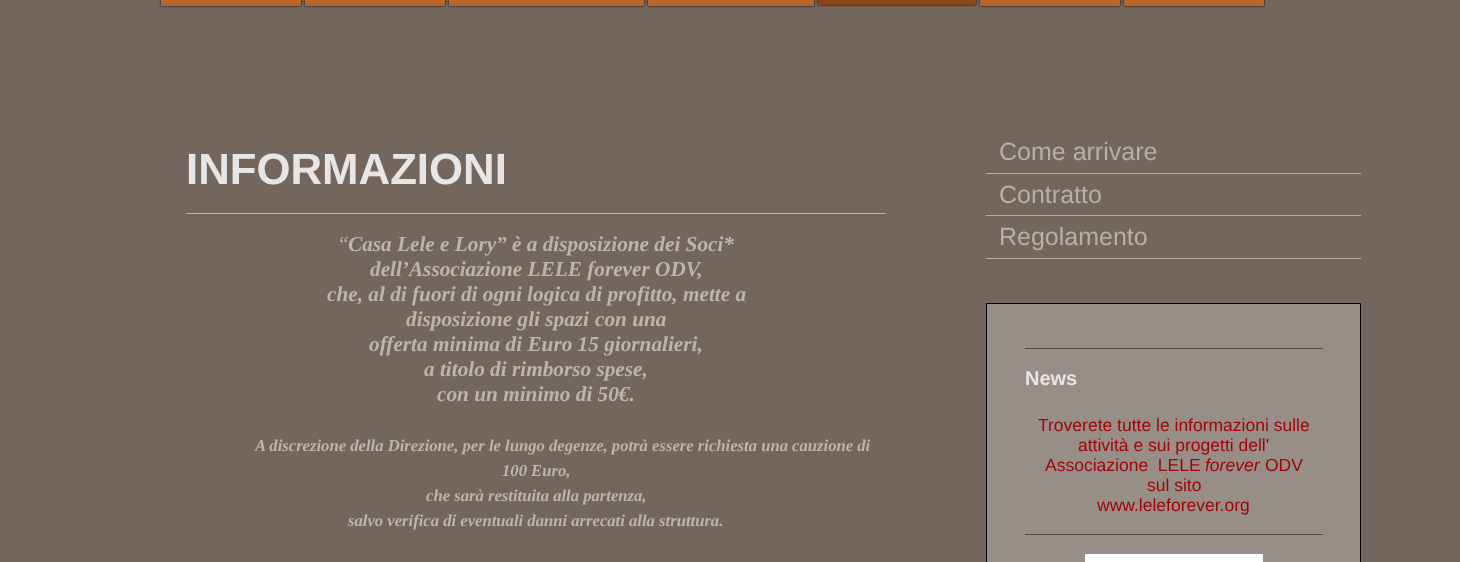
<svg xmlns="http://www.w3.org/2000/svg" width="1460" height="562">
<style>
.a{font:bold 43.75px Liberation Sans;fill:#e7e6e5}
.b{font:21.25px Liberation Serif;fill:#bab5b1}
.c{font:italic bold 21.25px Liberation Serif;fill:#bab5b1}
.d{font:italic bold 16.65px Liberation Serif;fill:#bab5b1}
.e{font:25px Liberation Sans;fill:#b6b0ab}
.f{font:bold 20px Liberation Sans;fill:#e7e6e5}
.g{font:17.5px Liberation Sans;fill:#9f0408}
.h{font:italic 17.5px Liberation Sans;fill:#9f0408}
</style>
<defs>
<linearGradient id="g1" gradientUnits="userSpaceOnUse" x1="231" y1="-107" x2="231" y2="6.3"><stop offset="0" stop-color="#ffa86c"/><stop offset="1" stop-color="#b76226"/></linearGradient>
<linearGradient id="g2" gradientUnits="userSpaceOnUse" x1="375" y1="-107" x2="375" y2="6.3"><stop offset="0" stop-color="#ffa86c"/><stop offset="1" stop-color="#b76226"/></linearGradient>
<linearGradient id="g3" gradientUnits="userSpaceOnUse" x1="546" y1="-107" x2="546" y2="6.3"><stop offset="0" stop-color="#ffa86c"/><stop offset="1" stop-color="#b76226"/></linearGradient>
<linearGradient id="g4" gradientUnits="userSpaceOnUse" x1="731" y1="-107" x2="731" y2="6.3"><stop offset="0" stop-color="#ffa86c"/><stop offset="1" stop-color="#b76226"/></linearGradient>
<linearGradient id="g5" gradientUnits="userSpaceOnUse" x1="897" y1="-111" x2="897" y2="5"><stop offset="0" stop-color="#db6e21"/><stop offset="1" stop-color="#86471a"/></linearGradient>
<linearGradient id="g6" gradientUnits="userSpaceOnUse" x1="1050" y1="-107" x2="1050" y2="6.3"><stop offset="0" stop-color="#ffa86c"/><stop offset="1" stop-color="#b76226"/></linearGradient>
<linearGradient id="g7" gradientUnits="userSpaceOnUse" x1="1194" y1="-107" x2="1194" y2="6.3"><stop offset="0" stop-color="#ffa86c"/><stop offset="1" stop-color="#b76226"/></linearGradient>
</defs>
<rect width="100%" height="100%" fill="#73665d"/>
<path fill="#000" filter="blur(1px)" d="M161 -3h140v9H161z"/>
<path fill="url(#g1)" d="M161 0h140v6H161z"/>
<path fill="#000" filter="blur(1px)" d="M305 -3h140v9H305z"/>
<path fill="url(#g2)" d="M305 0h140v6H305z"/>
<path fill="#000" filter="blur(1px)" d="M449 -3h195v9H449z"/>
<path fill="url(#g3)" d="M449 0h195v6H449z"/>
<path fill="#000" filter="blur(1px)" d="M648 -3h166v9H648z"/>
<path fill="url(#g4)" d="M648 0h166v6H648z"/>
<path fill="#000" filter="blur(1px)" d="M818 -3h158v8H818z"/>
<path fill="url(#g5)" d="M818 0h158v5H818z"/>
<path fill="#000" filter="blur(1px)" d="M980 -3h140v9H980z"/>
<path fill="url(#g6)" d="M980 0h140v6H980z"/>
<path fill="#000" filter="blur(1px)" d="M1124 -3h140v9H1124z"/>
<path fill="url(#g7)" d="M1124 0h140v6H1124z"/>
<path fill="#bab5b1" d="M186 213h700v1H186z"/>
<path fill="#b6b0ab" d="M986 173h375v1H986z"/>
<path fill="#b6b0ab" d="M986 215h375v1H986z"/>
<path fill="#b6b0ab" d="M986 258h375v1H986z"/>
<path fill="#978e87" stroke="#000" d="M986.5 303.5h374v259H986.5z"/>
<path fill="#55483f" d="M1025 348h298v1H1025z"/>
<path fill="#55483f" d="M1025 534h298v1H1025z"/>
<path fill="#fff" d="M1085 554h178v8H1085z"/>
<text class="a" x="186" y="184">INFORMAZIONI</text>
<text class="b" x="339" y="251">“</text>
<text class="c" x="348" y="251">Casa Lele e Lory” è a disposizione dei Soci*</text>
<text class="c" x="370" y="276">dell’Associazione LELE forever ODV,</text>
<text class="c" x="327" y="301">che, al di fuori di ogni logica di profitto, mette a</text>
<text class="c" x="406" y="326">disposizione gli spazi</text>
<text class="c" x="595" y="326">con una</text>
<text class="c" x="369" y="351">offerta minima di Euro 15 giornalieri,</text>
<text class="c" x="424" y="376">a titolo di rimborso spese,</text>
<text class="c" x="437" y="401">con un minimo di 50€.</text>
<text class="d" x="255" y="451">A discrezione della Direzione, per le lungo degenze, potrà essere richiesta una cauzione di</text>
<text class="d" x="502" y="476">100 Euro,</text>
<text class="d" x="426" y="501">che sarà restituita alla partenza,</text>
<text class="d" x="348" y="526">salvo verifica di eventuali danni arrecati alla struttura.</text>
<text class="e" x="999" y="160">Come arrivare</text>
<text class="e" x="999" y="203">Contratto</text>
<text class="e" x="999" y="245">Regolamento</text>
<text class="f" x="1025" y="385">News</text>
<text class="g" x="1038" y="431">Troverete tutte le informazioni sulle</text>
<text class="g" x="1078" y="451">attività e sui progetti dell'</text>
<text class="g" xml:space="preserve" x="1045" y="471">Associazione  LELE</text>
<text class="h" x="1205" y="471">forever</text>
<text class="g" x="1265" y="471">ODV</text>
<text class="g" x="1147" y="491">sul sito</text>
<text class="g" x="1097" y="511">www.leleforever.org</text>
</svg>
